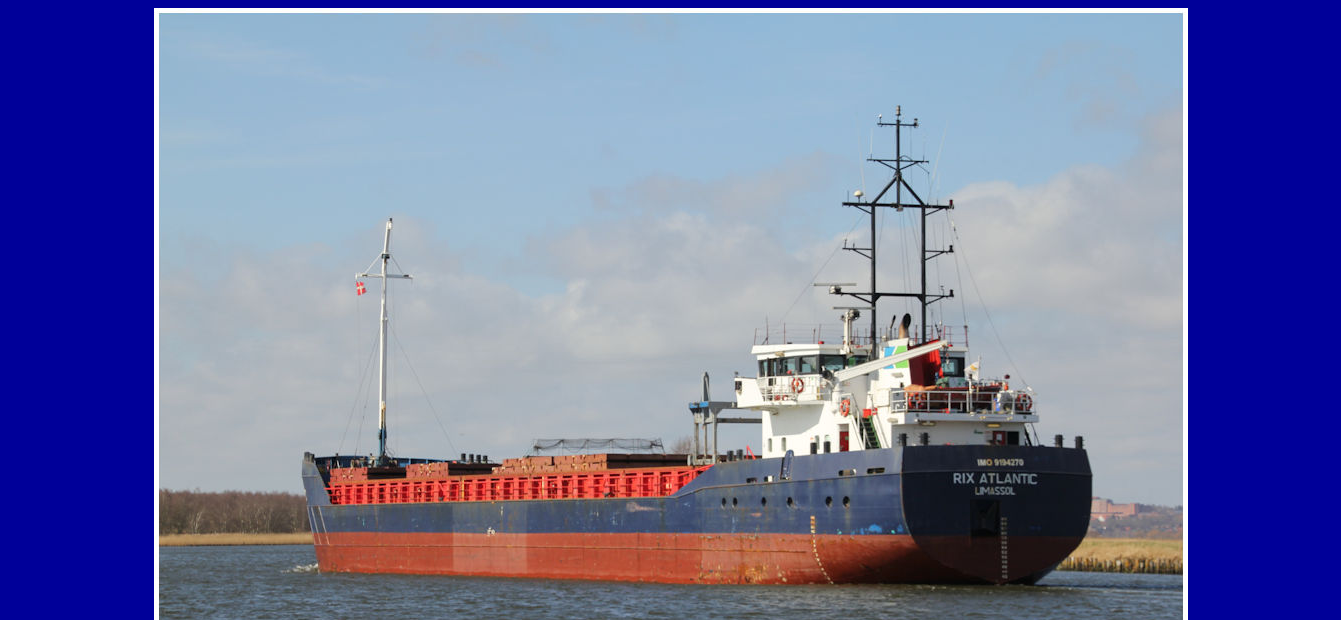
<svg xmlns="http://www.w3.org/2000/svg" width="1341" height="620">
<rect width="100%" height="100%" fill="#009"/>
<image href="1.png" x="154" y="8" width="1034" height="612"/>
</svg>
